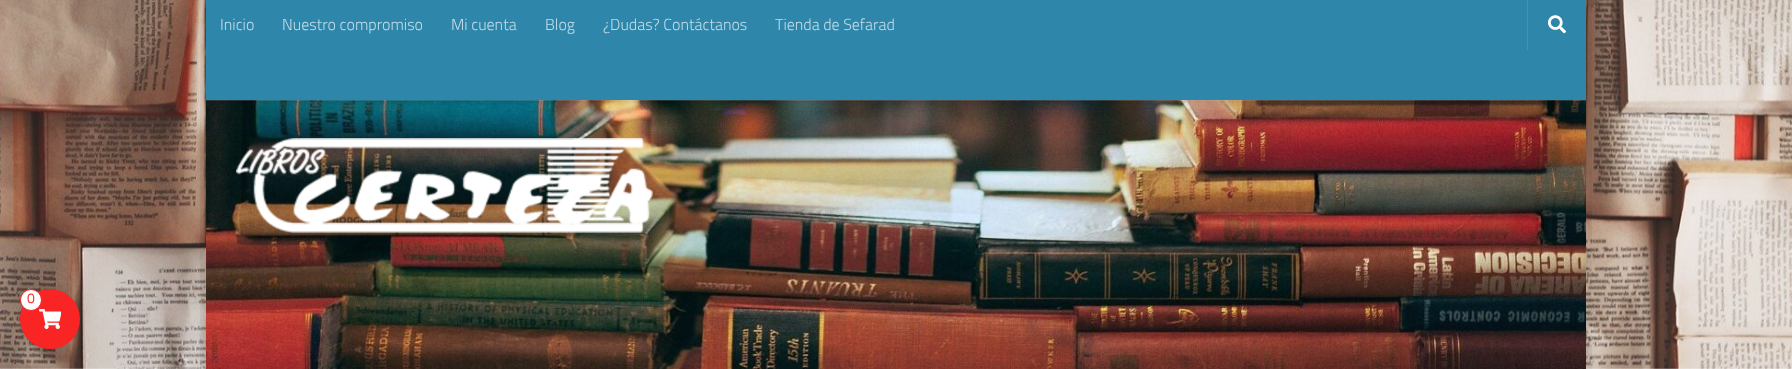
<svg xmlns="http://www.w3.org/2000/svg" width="1792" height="369">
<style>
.a{font:300 16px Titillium;fill:#c0dbe6}
.b{font:14px Titillium;fill:#f92424}
</style>
<rect width="100%" height="100%" fill="#fff"/>
<image href="1.png" x="0" y="0" width="1792" height="369"/>
<path fill="#0000000a" d="M200 0h6v369H200z"/>
<path fill="#0000000a" d="M1586 0h6v369H1586z"/>
<image href="3.png" x="206" y="100" width="1380" height="269"/>
<path fill="#ffffff26" d="M206 100h1380v1H206z"/>
<path fill="#00000033" filter="blur(2.5px)" d="M206 0h1380v100H206z"/>
<path fill="#2e86ab" d="M206 0h1380v100H206z"/>
<path fill="#4392b3" d="M1527 0h1v50H1527z"/>
<image href="2.png" x="1548" y="15" width="18" height="19"/>
<image href="4.png" x="236" y="138" width="417" height="95"/>
<rect fill="#00000026" filter="blur(2.5px)" x="20" y="289" width="60" height="60" rx="30"/>
<circle fill="#f92424" cx="50" cy="319" r="30"/>
<circle fill="#fff" stroke="#f92424" cx="31" cy="300" r="10.5"/>
<image href="5.png" x="39" y="309" width="22" height="20"/>
<text class="a" x="220" y="30">Inicio</text>
<text class="a" x="282" y="30">Nuestro compromiso</text>
<text class="a" x="451" y="30">Mi cuenta</text>
<text class="a" x="545" y="30">Blog</text>
<text class="a" x="603" y="30">¿Dudas? Contáctanos</text>
<text class="a" x="775" y="30">Tienda de Sefarad</text>
<text class="b" x="27" y="303">0</text>
</svg>
